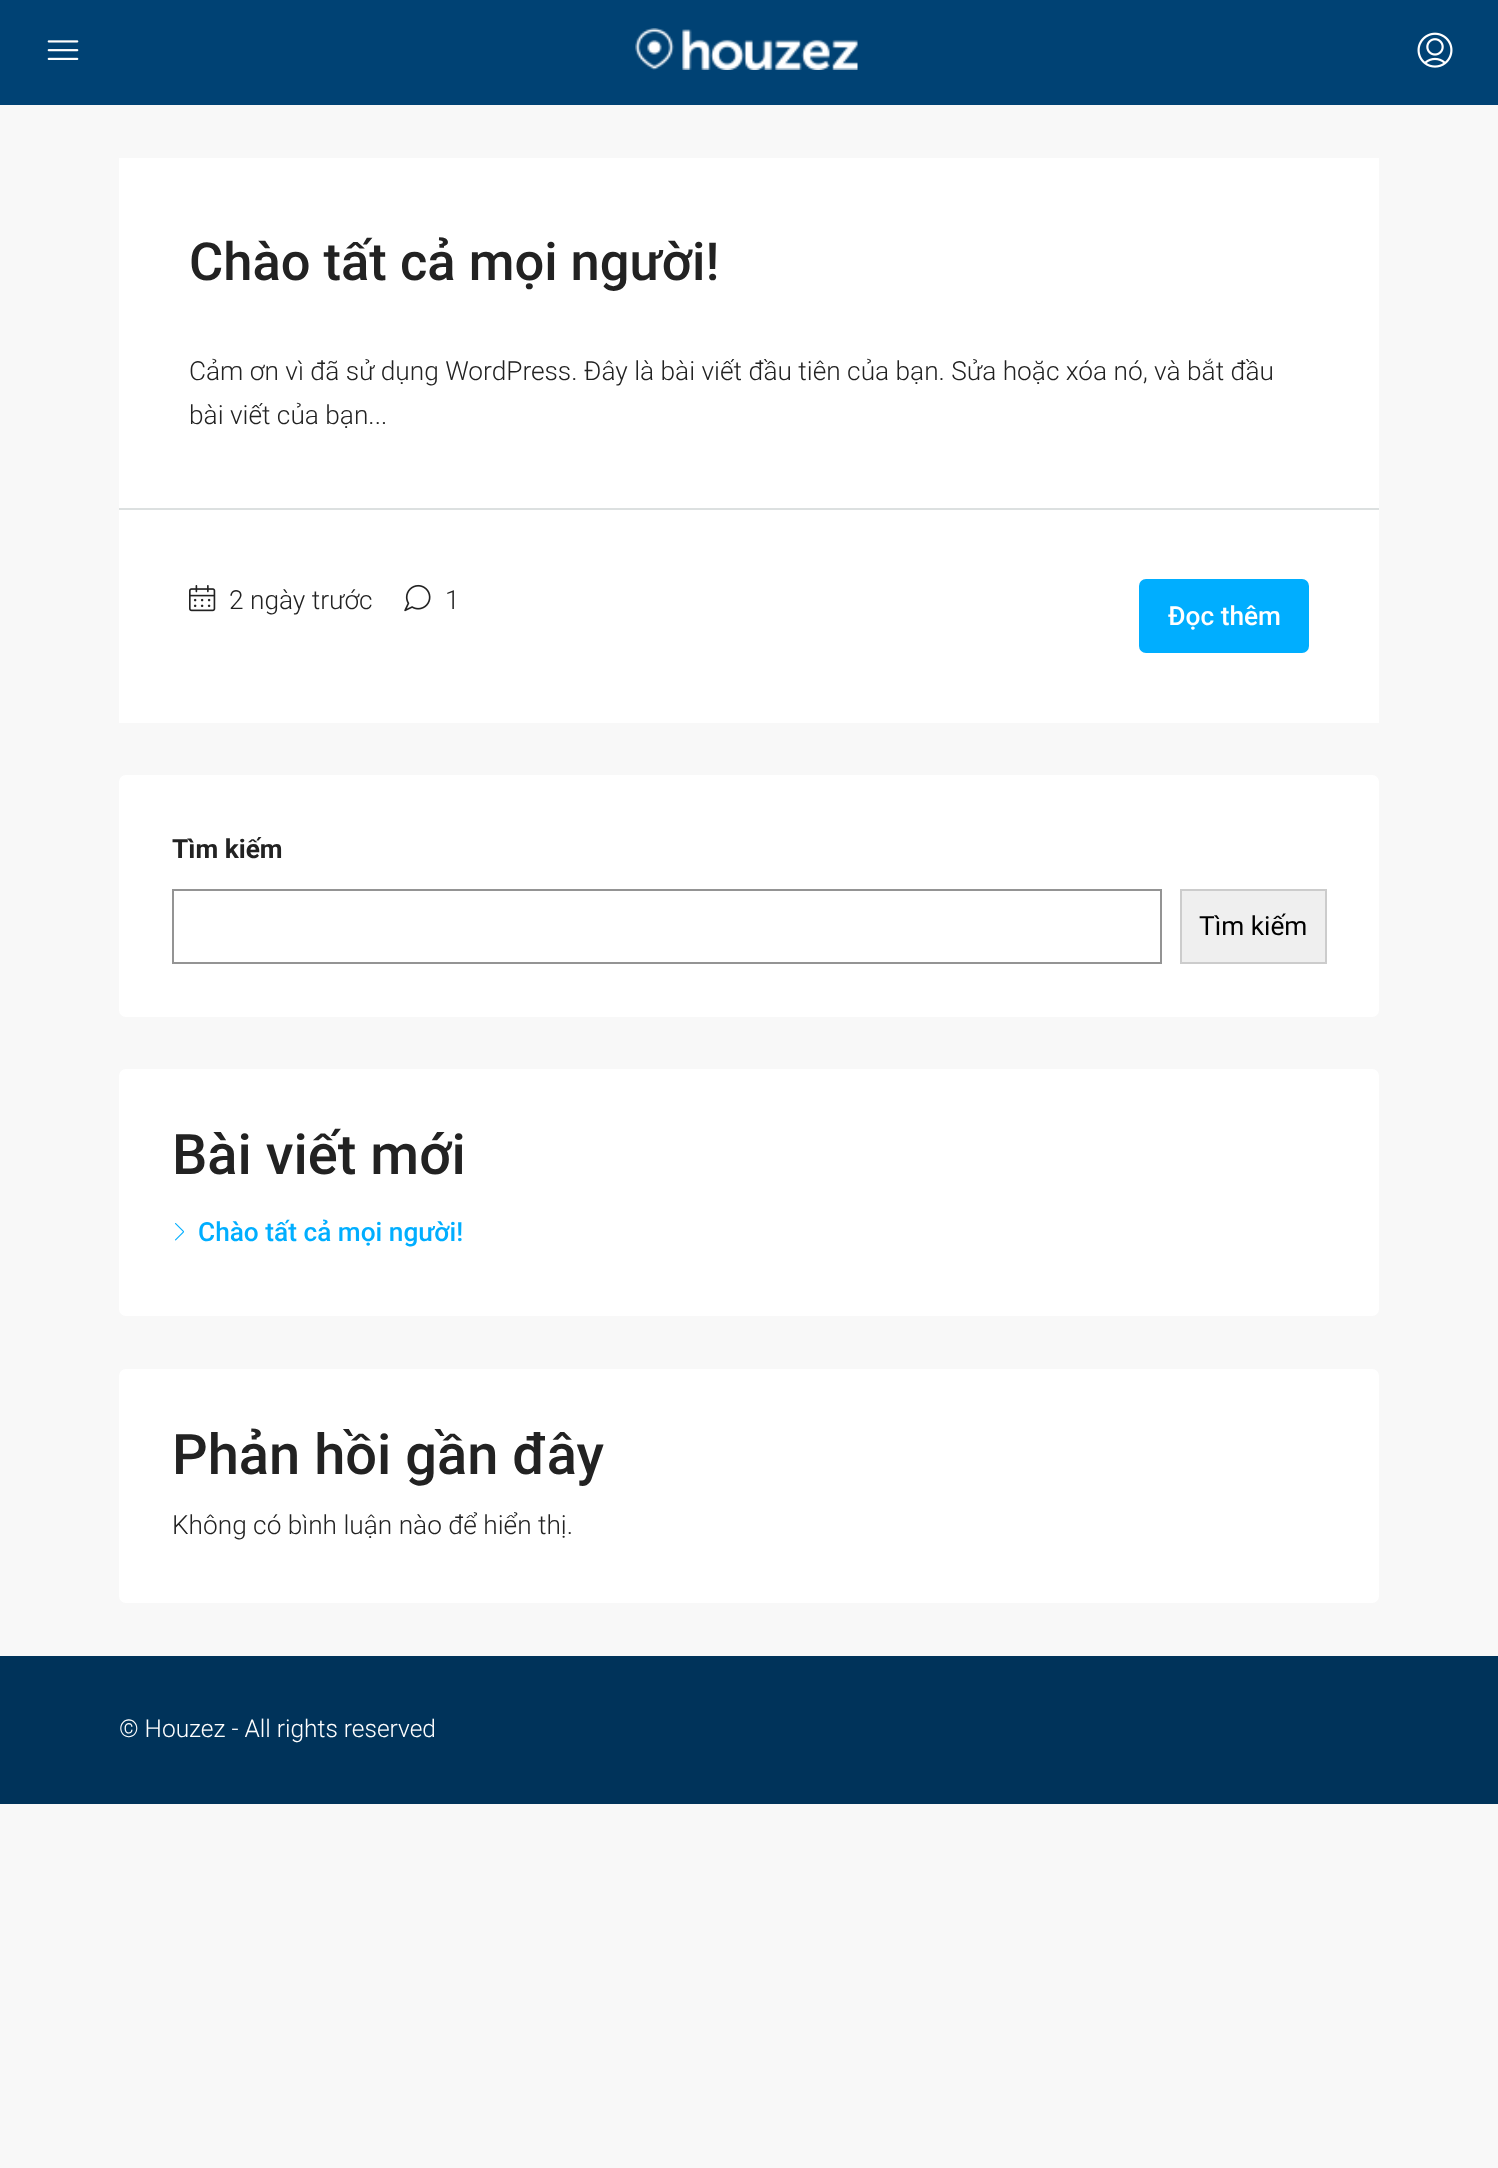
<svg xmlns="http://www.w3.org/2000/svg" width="1498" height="2168">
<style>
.a{font:500 52.5px Roboto;fill:#222}
.b{font:300 26.25px Roboto;fill:#222}
.c{font:500 26.25px Roboto;fill:#fff}
.d{font:bold 26.25px Roboto;fill:#222}
.e{font:26.25px Roboto;fill:#000}
.f{font:500 56px Roboto;fill:#222}
.g{font:500 26.25px Roboto;fill:#00aeff}
.h{font:300 24.5px Roboto;fill:#fff}
</style>
<rect width="100%" height="100%" fill="#f8f8f8"/>
<path fill="#004274" d="M0 0h1498v105H0z"/>
<image href="1.png" x="47" y="40" width="32" height="20"/>
<image href="2.png" x="635" y="28" width="223" height="42"/>
<image href="3.png" x="1417" y="32" width="36" height="36"/>
<path fill="#fff" d="M119 158h1260v565H119z"/>
<path fill="#dce0e0" d="M119 508h1260v2H119z"/>
<image href="4.png" x="189" y="585" width="27" height="27"/>
<image href="5.png" x="404" y="584" width="27" height="28"/>
<rect fill="#00aeff" stroke="#00aeff" stroke-width="2" x="1140" y="580" width="168" height="72" rx="6"/>
<rect fill="#fff" x="119" y="775" width="1260" height="242" rx="7"/>
<path fill="none" stroke="#949494" stroke-width="2" d="M173 890h988v73H173z"/>
<path fill="#efefef" stroke="#ccc" stroke-width="2" d="M1181 890h145v73H1181z"/>
<rect fill="#fff" x="119" y="1069" width="1260" height="247" rx="7"/>
<image href="6.png" x="175" y="1223" width="9" height="18"/>
<rect fill="#fff" x="119" y="1369" width="1260" height="234" rx="7"/>
<path fill="#00335a" d="M0 1656h1498v148H0z"/>
<text class="a" x="189" y="280">Chào tất cả mọi người!</text>
<text class="b" x="189" y="380">Cảm ơn vì đã sử dụng WordPress. Đây là bài viết đầu tiên của bạn. Sửa hoặc xóa nó, và bắt đầu</text>
<text class="b" x="189" y="424">bài viết của bạn...</text>
<text class="b" x="229" y="609">2 ngày trước</text>
<text class="b" x="445" y="609">1</text>
<text class="c" x="1168" y="625">Đọc thêm</text>
<text class="d" x="172" y="858">Tìm kiếm</text>
<text class="e" x="1199" y="935">Tìm kiếm</text>
<text class="f" x="172" y="1174">Bài viết mới</text>
<text class="g" x="198" y="1241">Chào tất cả mọi người!</text>
<text class="f" x="172" y="1474">Phản hồi gần đây</text>
<text class="b" x="172" y="1534">Không có bình luận nào để hiển thị.</text>
<text class="h" x="119" y="1737">© Houzez - All rights reserved</text>
</svg>
